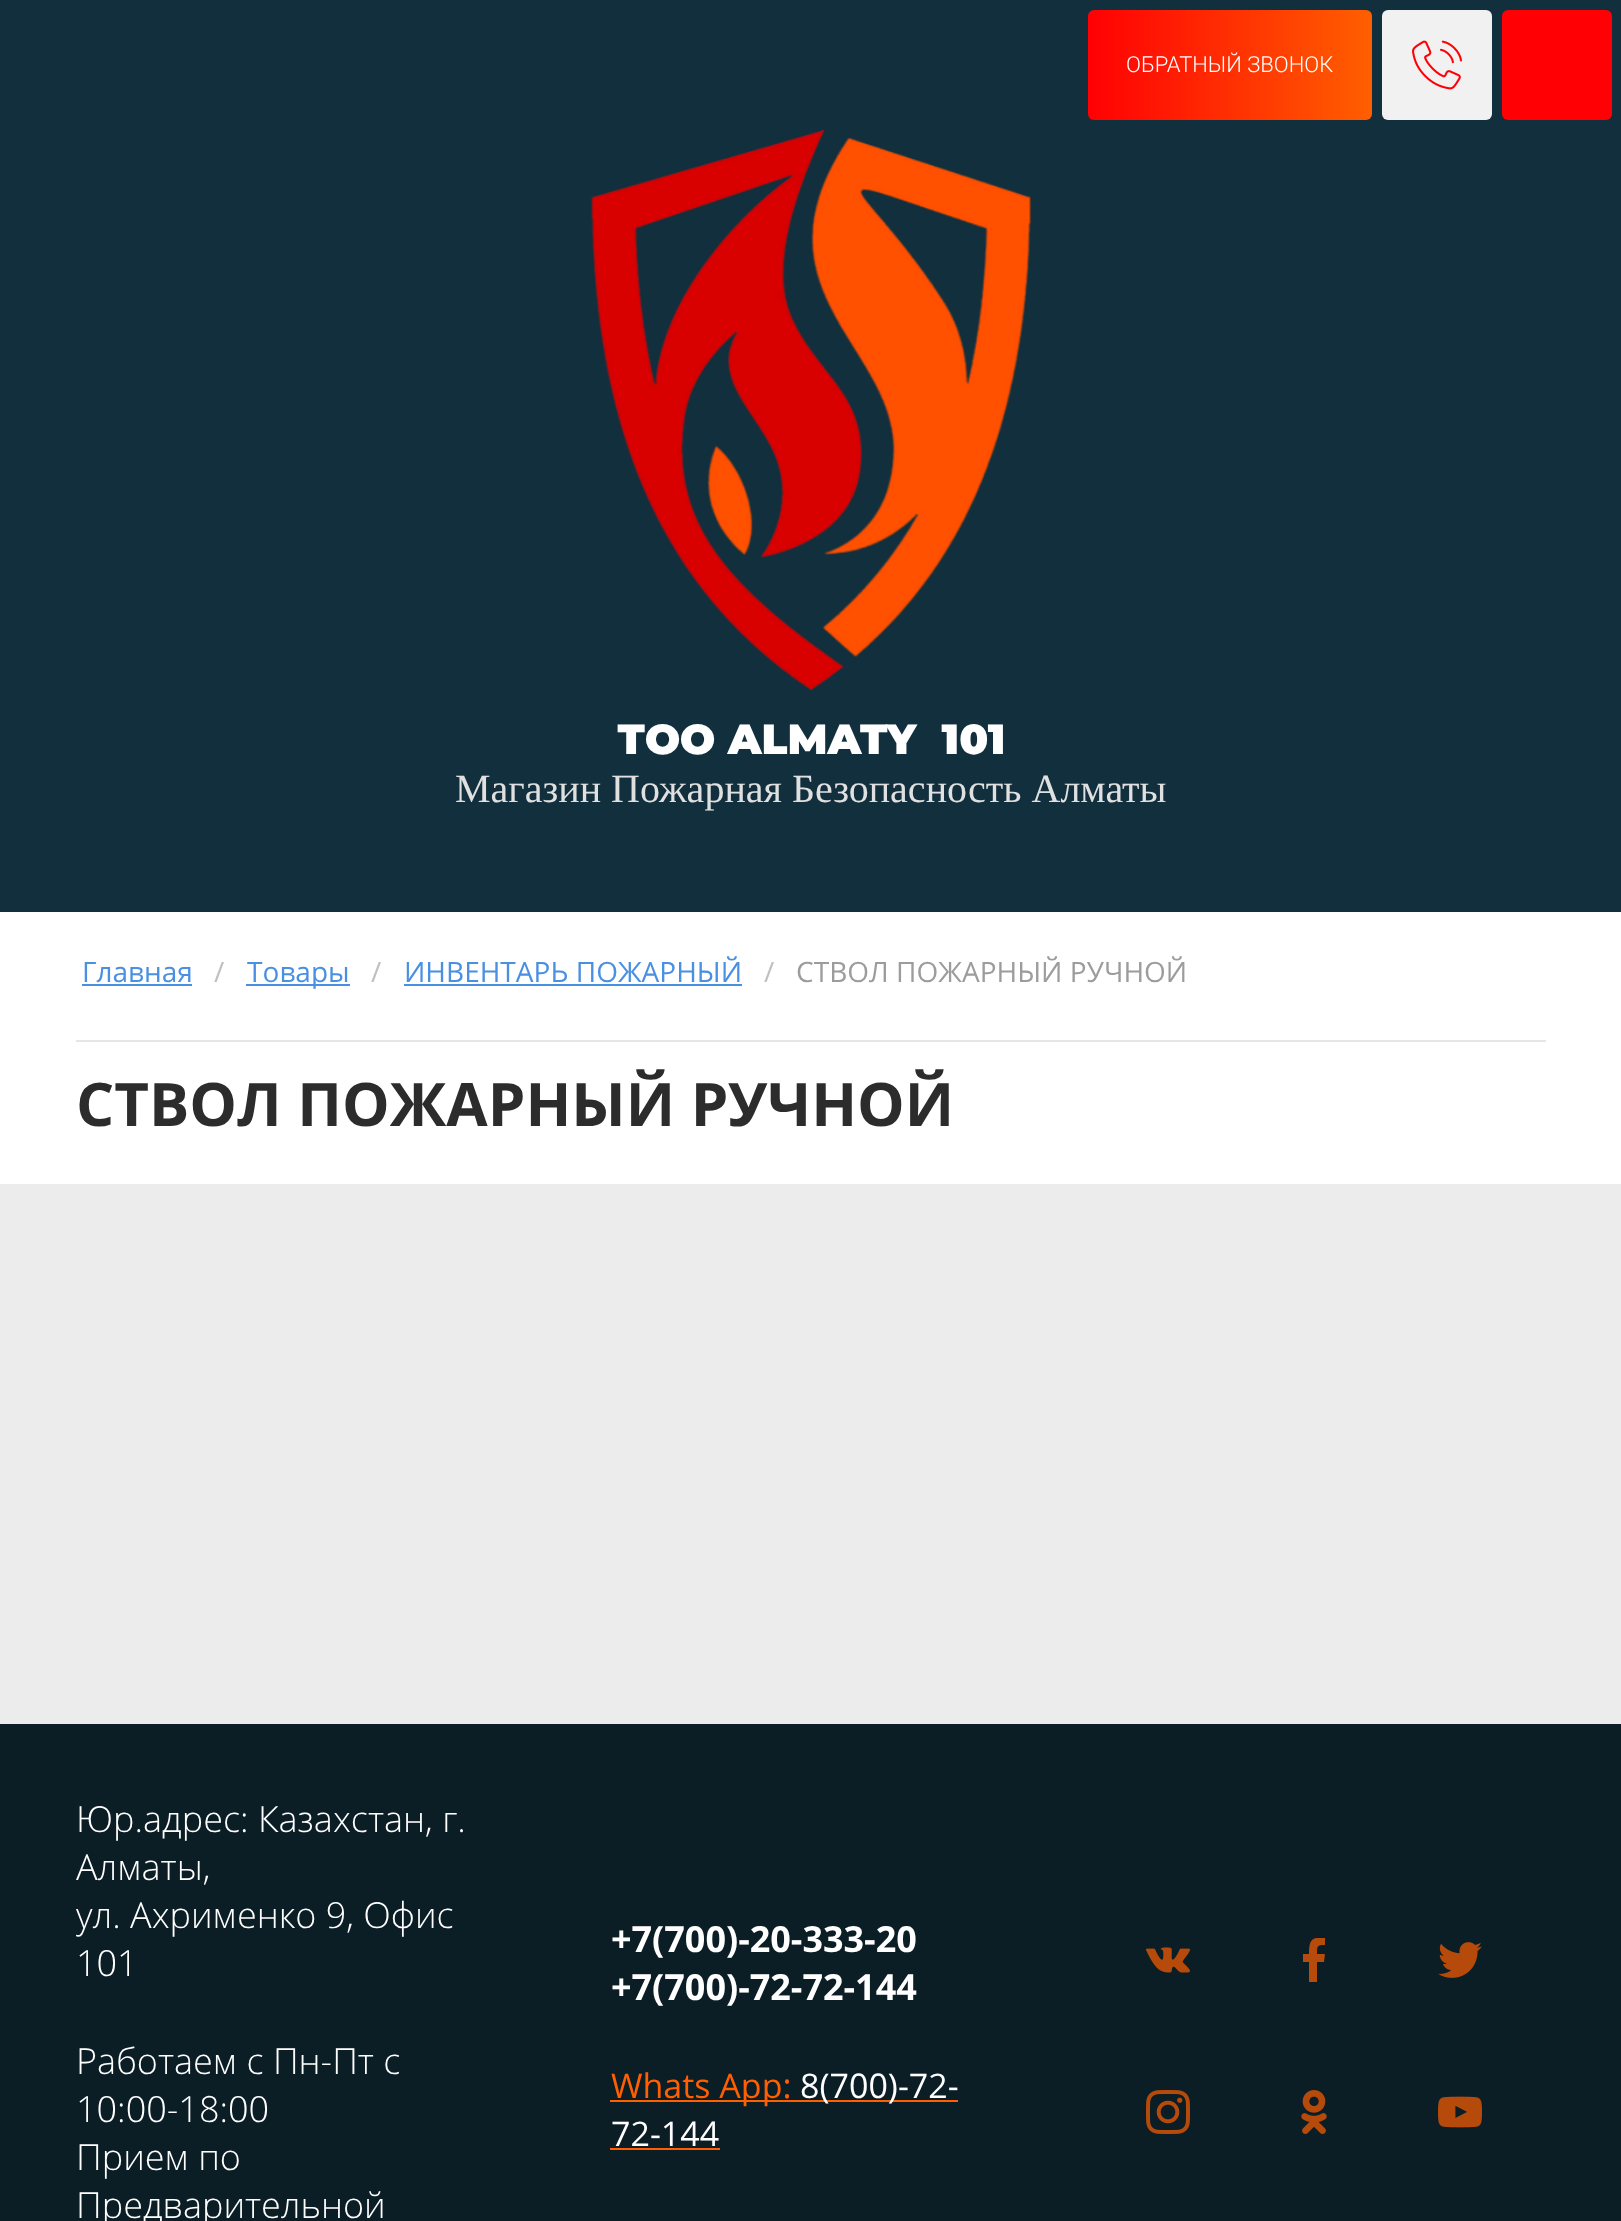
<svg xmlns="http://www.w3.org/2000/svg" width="1621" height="2221">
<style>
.a{font:300 22px Roboto;fill:#fff}
.b{font:900 42px Montserrat;fill:#fff}
.c{font:40px Liberation Serif;fill:#e0e0e0}
.d{font:28px Open Sans;fill:#4a90e2}
.e{font:28px Open Sans;fill:#c0c0c0}
.f{font:28px Open Sans;fill:#9c9c9c}
.g{font:bold 60px Open Sans;fill:#2c2c2c}
.h{font:300 36px Open Sans;fill:#fff}
.i{font:bold 36px Open Sans;fill:#fff}
.j{font:34px Open Sans;fill:#ff5f00}
.k{font:34px Open Sans;fill:#fff}
</style>
<defs>
<linearGradient id="g1" gradientUnits="userSpaceOnUse" x1="1088" y1="65" x2="1372" y2="65"><stop offset="0" stop-color="#ff0004"/><stop offset="1" stop-color="#ff5f00"/></linearGradient>
<clipPath id="clip1"><path d="M1292 1938h44v44H1292z"/></clipPath>
</defs>
<rect width="100%" height="100%" fill="#fff"/>
<path fill="#112f3d" d="M0 0h1621v912H0z"/>
<rect fill="url(#g1)" x="1088" y="10" width="284" height="110" rx="6"/>
<rect fill="#f1f1f1" x="1382" y="10" width="110" height="110" rx="6"/>
<image href="1.png" x="1412" y="40" width="50" height="50"/>
<rect fill="#ff0004" x="1502" y="10" width="110" height="110" rx="6"/>
<image href="2.png" x="591" y="130" width="440" height="560"/>
<path fill="#e6e6e6" d="M76 1040h1470v2H76z"/>
<path fill="#4a90e2" d="M82 984h110v2H82z"/>
<path fill="#4a90e2" d="M246 984h104v2H246z"/>
<path fill="#4a90e2" d="M404 984h338v2H404z"/>
<path fill="#ececec" d="M0 1184h1621v540H0z"/>
<path fill="#0b1d25" d="M0 1724h1621v497H0z"/>
<path fill="#ff5f00" d="M610 2100h348v2H610z"/>
<path fill="#ff5f00" d="M610 2148h110v2H610z"/>
<image href="3.png" x="1146" y="1947" width="44" height="26"/>
<g clip-path="url(#clip1)">
<path fill="#b64b0b" d="M1317 1982v-20h7l1-8h-8c0-8 0-9 8-9v-7c-14-2-16 3-16 16h-6v8h6v20z"/>
</g>
<image href="4.png" x="1438" y="1942" width="44" height="36"/>
<image href="5.png" x="1146" y="2090" width="44" height="44"/>
<image href="6.png" x="1301" y="2090" width="26" height="44"/>
<image href="7.png" x="1438" y="2096" width="44" height="32"/>
<text class="a" x="1126" y="72">ОБРАТНЫЙ ЗВОНОК</text>
<text class="b" xml:space="preserve" x="617" y="754">ТОО ALMATY  101</text>
<text class="c" x="455" y="802">Магазин Пожарная Безопасность Алматы</text>
<text class="d" x="82" y="982">Главная</text>
<text class="e" x="214" y="982">/</text>
<text class="d" x="247" y="982">Товары</text>
<text class="e" x="371" y="982">/</text>
<text class="d" x="404" y="982">ИНВЕНТАРЬ ПОЖАРНЫЙ</text>
<text class="e" x="764" y="982">/</text>
<text class="f" x="796" y="982">СТВОЛ ПОЖАРНЫЙ РУЧНОЙ</text>
<text class="g" x="76" y="1126">СТВОЛ ПОЖАРНЫЙ РУЧНОЙ</text>
<text class="h" x="76" y="1832">Юр.адрес: Казахстан, г.</text>
<text class="h" x="76" y="1880">Алматы,</text>
<text class="h" x="76" y="1928">ул. Ахрименко 9, Офис</text>
<text class="h" x="76" y="1976">101</text>
<text class="h" x="76" y="2074">Работаем с Пн-Пт с</text>
<text class="h" x="76" y="2122">10:00-18:00</text>
<text class="h" x="76" y="2170">Прием по</text>
<text class="h" x="76" y="2218">Предварительной</text>
<text class="i" x="611" y="1952">+7(700)-20-333-20</text>
<text class="i" x="611" y="2000">+7(700)-72-72-144</text>
<text class="j" x="611" y="2098">Whats App:</text>
<text class="k" x="800" y="2098">8(700)-72-</text>
<text class="k" x="611" y="2146">72-144</text>
</svg>
